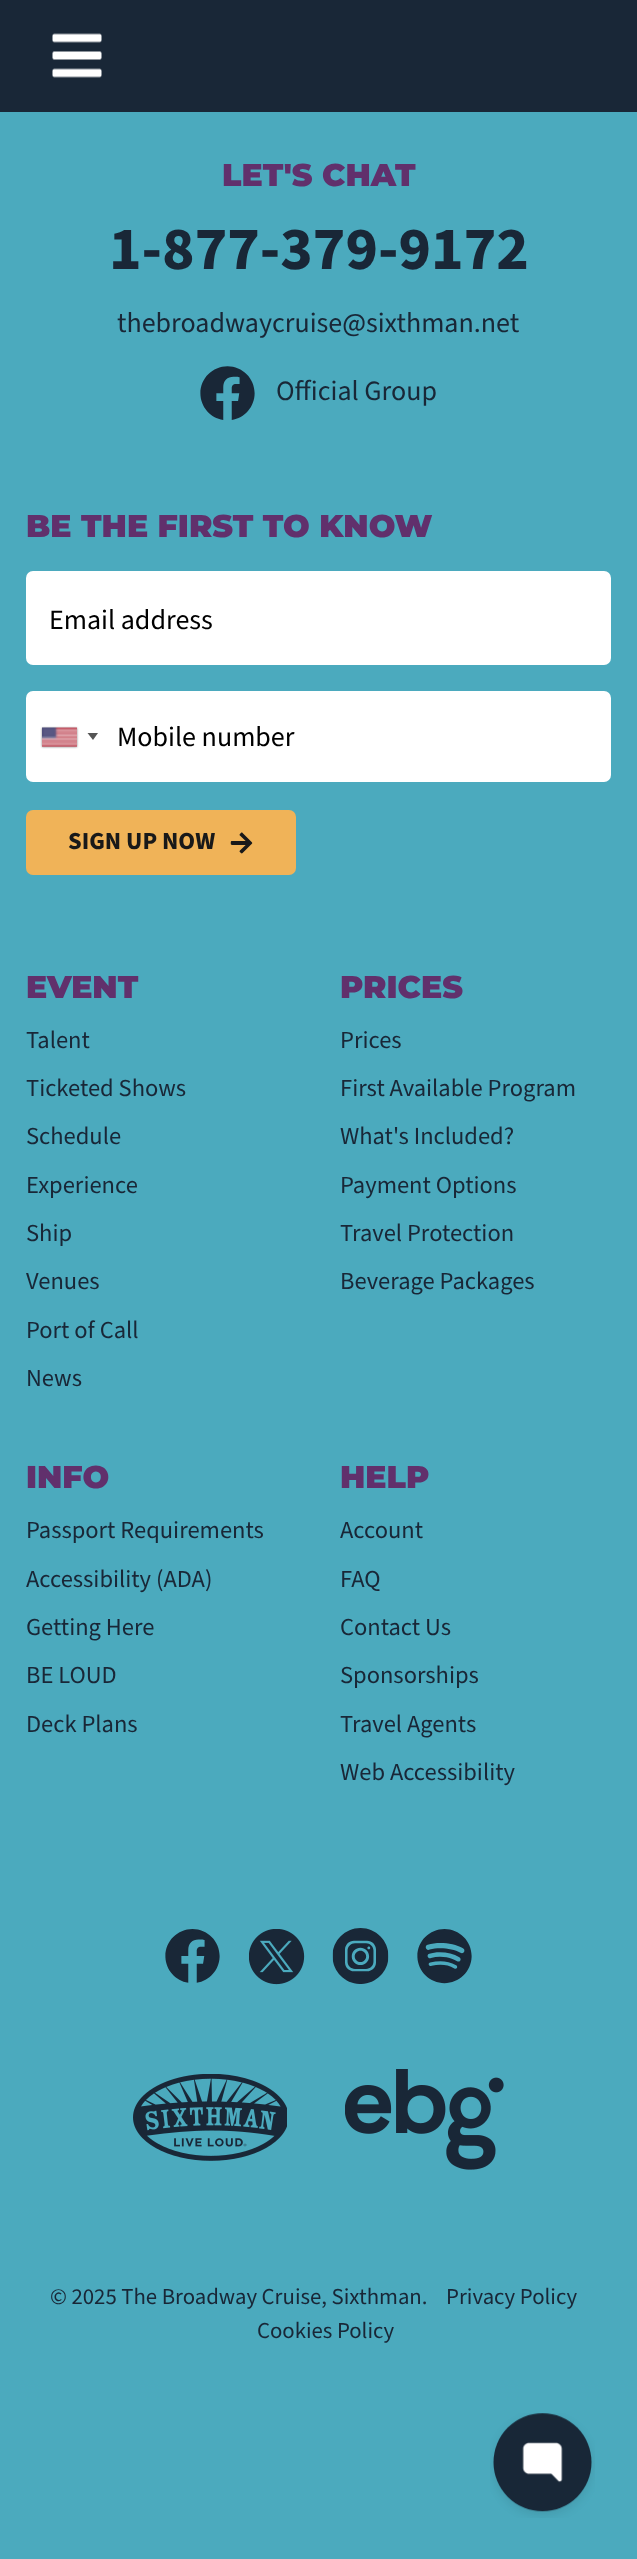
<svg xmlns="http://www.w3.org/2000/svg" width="637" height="2559">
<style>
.a{font:900 31.5px Montserrat;fill:#61306c}
.b{font:bold 61.25px Source Sans Pro;fill:#192737}
.c{font:28px Source Sans Pro;fill:#192737}
.d{font:28px Source Sans Pro;fill:#000}
.e{font:bold 24.5px Source Sans Pro;fill:#191919}
.f{font:24.5px Source Sans Pro;fill:#192737}
.g{font:22.75px Source Sans Pro;fill:#192737}
</style>
<rect width="100%" height="100%" fill="#4baabe"/>
<path fill="#192737" d="M0 0h637v112H0z"/>
<image href="1.png" x="52" y="33" width="50" height="45"/>
<image href="2.png" x="200" y="366" width="55" height="54"/>
<rect fill="#fff" x="26" y="571" width="585" height="94" rx="7"/>
<rect fill="#fff" x="26" y="691" width="585" height="91" rx="7"/>
<path fill="#888" filter="blur(1px)" d="M42 728h35v19H42z"/>
<image href="3.png" x="42" y="727" width="35" height="20"/>
<path fill="#555" d="M87.5 733h10.5l-5 7z"/>
<rect fill="#f0b358" x="26" y="810" width="270" height="65" rx="7"/>
<image href="4.png" x="230" y="832" width="23" height="22"/>
<image href="5.png" x="165" y="1929" width="55" height="54"/>
<image href="6.png" x="249" y="1929" width="56" height="56"/>
<image href="7.png" x="332" y="1928" width="57" height="56"/>
<image href="8.png" x="417" y="1929" width="55" height="55"/>
<image href="9.png" x="133" y="2074" width="154" height="87"/>
<image href="10.png" x="345" y="2069" width="159" height="101"/>
<image href="11.png" x="490" y="2413" width="105" height="105"/>
<text class="a" x="222" y="186">LET'S CHAT</text>
<text class="b" x="109" y="269">1-877-379-9172</text>
<text class="c" x="117" y="332">thebroadwaycruise@sixthman.net</text>
<text class="c" x="276" y="400">Official Group</text>
<text class="a" x="26" y="537">BE THE FIRST TO KNOW</text>
<text class="d" x="49" y="629">Email address</text>
<text class="d" x="117" y="746">Mobile number</text>
<text class="e" x="68" y="849">SIGN UP NOW</text>
<text class="a" x="26" y="998">EVENT</text>
<text class="f" x="26" y="1048">Talent</text>
<text class="f" x="26" y="1096">Ticketed Shows</text>
<text class="f" x="26" y="1144">Schedule</text>
<text class="f" x="26" y="1193">Experience</text>
<text class="f" x="26" y="1241">Ship</text>
<text class="f" x="26" y="1289">Venues</text>
<text class="f" x="26" y="1338">Port of Call</text>
<text class="f" x="26" y="1386">News</text>
<text class="a" x="340" y="998">PRICES</text>
<text class="f" x="340" y="1048">Prices</text>
<text class="f" x="340" y="1096">First Available Program</text>
<text class="f" x="340" y="1144">What's Included?</text>
<text class="f" x="340" y="1193">Payment Options</text>
<text class="f" x="340" y="1241">Travel Protection</text>
<text class="f" x="340" y="1289">Beverage Packages</text>
<text class="a" x="26" y="1488">INFO</text>
<text class="f" x="26" y="1538">Passport Requirements</text>
<text class="f" x="26" y="1587">Accessibility (ADA)</text>
<text class="f" x="26" y="1635">Getting Here</text>
<text class="f" x="26" y="1683">BE LOUD</text>
<text class="f" x="26" y="1732">Deck Plans</text>
<text class="a" x="340" y="1488">HELP</text>
<text class="f" x="340" y="1538">Account</text>
<text class="f" x="340" y="1587">FAQ</text>
<text class="f" x="340" y="1635">Contact Us</text>
<text class="f" x="340" y="1683">Sponsorships</text>
<text class="f" x="340" y="1732">Travel Agents</text>
<text class="f" x="340" y="1780">Web Accessibility</text>
<text class="g" x="50" y="2304">© 2025 The Broadway Cruise, Sixthman.</text>
<text class="g" x="446" y="2304">Privacy Policy</text>
<text class="g" x="257" y="2338">Cookies Policy</text>
</svg>
